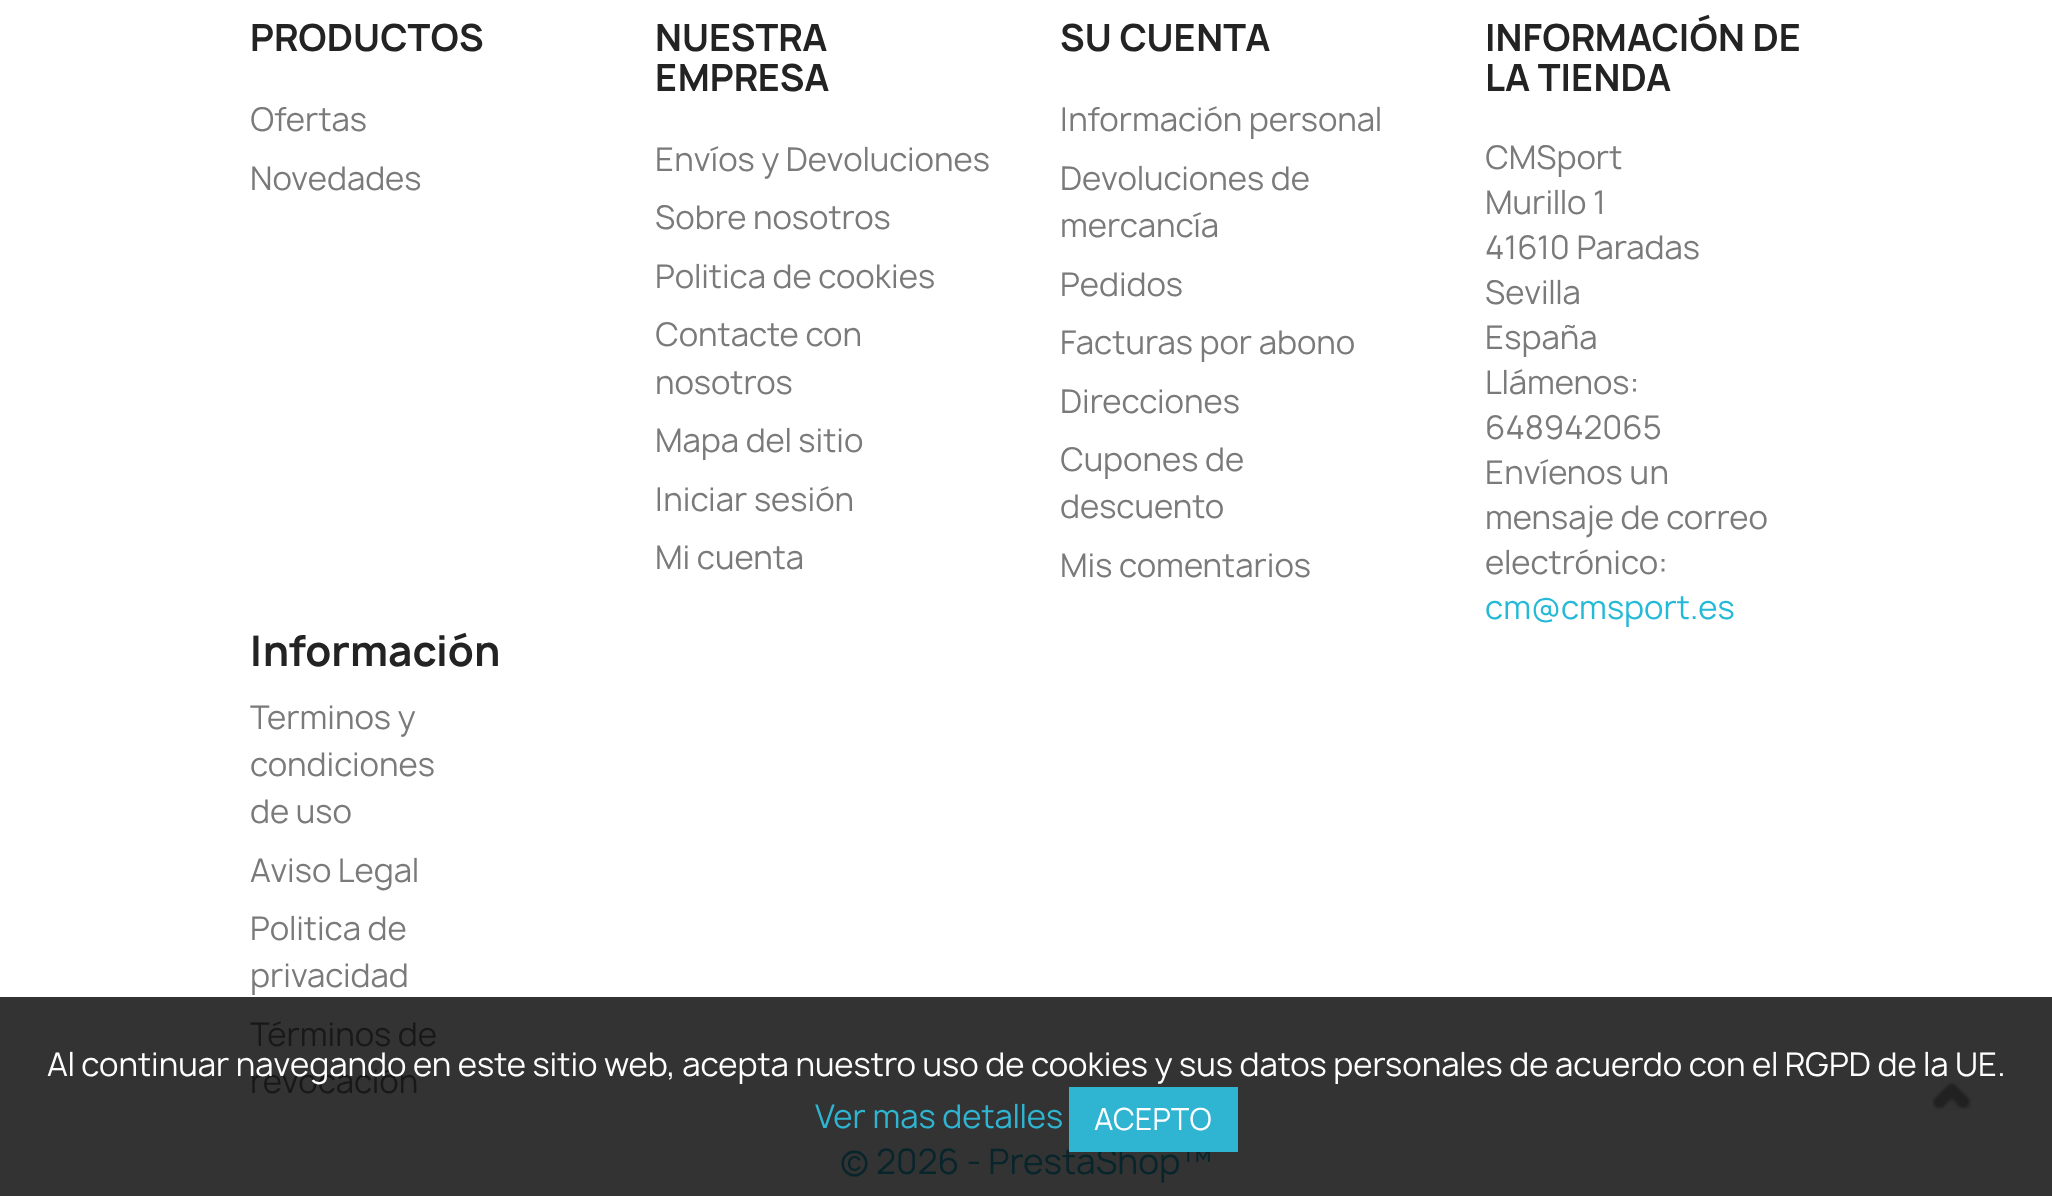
<svg xmlns="http://www.w3.org/2000/svg" width="2052" height="1196">
<style>
.a{font:bold 36px Manrope;fill:#232323}
.b{font:31.5px Manrope;fill:#7a7a7a}
.c{font:31.5px Manrope;fill:#24b9d7}
.d{font:bold 40.5px Manrope;fill:#232323}
.e{font:31.5px Manrope;fill:#181818}
.f{font:31.5px Manrope;fill:#fff}
.g{font:31.5px Manrope;fill:#2fb5d2}
.h{font:33.75px Manrope;fill:#07252b}
.i{font:29.25px Manrope;fill:#fff}
</style>
<rect width="100%" height="100%" fill="#fff"/>
<path fill="#333" d="M0 997h2052v199H0z"/>
<image href="1.png" x="1932" y="1082" width="40" height="28"/>
<text class="a" x="250" y="51">PRODUCTOS</text>
<text class="b" x="250" y="131">Ofertas</text>
<text class="b" x="250" y="190">Novedades</text>
<text class="a" x="655" y="51">NUESTRA</text>
<text class="a" x="655" y="91">EMPRESA</text>
<text class="b" x="655" y="171">Envíos y Devoluciones</text>
<text class="b" x="655" y="229">Sobre nosotros</text>
<text class="b" x="655" y="288">Politica de cookies</text>
<text class="b" x="655" y="346">Contacte con</text>
<text class="b" x="655" y="394">nosotros</text>
<text class="b" x="655" y="452">Mapa del sitio</text>
<text class="b" x="655" y="511">Iniciar sesión</text>
<text class="b" x="655" y="569">Mi cuenta</text>
<text class="a" x="1060" y="51">SU CUENTA</text>
<text class="b" x="1060" y="131">Información personal</text>
<text class="b" x="1060" y="190">Devoluciones de</text>
<text class="b" x="1060" y="237">mercancía</text>
<text class="b" x="1060" y="296">Pedidos</text>
<text class="b" x="1060" y="354">Facturas por abono</text>
<text class="b" x="1060" y="413">Direcciones</text>
<text class="b" x="1060" y="471">Cupones de</text>
<text class="b" x="1060" y="518">descuento</text>
<text class="b" x="1060" y="577">Mis comentarios</text>
<text class="a" x="1485" y="51">INFORMACIÓN DE</text>
<text class="a" x="1485" y="91">LA TIENDA</text>
<text class="b" x="1485" y="169">CMSport</text>
<text class="b" x="1485" y="214">Murillo 1</text>
<text class="b" x="1485" y="259">41610 Paradas</text>
<text class="b" x="1485" y="304">Sevilla</text>
<text class="b" x="1485" y="349">España</text>
<text class="b" x="1485" y="394">Llámenos:</text>
<text class="b" x="1485" y="439">648942065</text>
<text class="b" x="1485" y="484">Envíenos un</text>
<text class="b" x="1485" y="529">mensaje de correo</text>
<text class="b" x="1485" y="574">electrónico:</text>
<text class="c" x="1485" y="619">cm@cmsport.es</text>
<text class="d" x="250" y="666">Información</text>
<text class="b" x="250" y="729">Terminos y</text>
<text class="b" x="250" y="776">condiciones</text>
<text class="b" x="250" y="823">de uso</text>
<text class="b" x="250" y="882">Aviso Legal</text>
<text class="b" x="250" y="940">Politica de</text>
<text class="b" x="250" y="987">privacidad</text>
<text class="e" x="250" y="1046">Términos de</text>
<text class="e" x="250" y="1093">revocación</text>
<text class="f" x="47" y="1076">Al continuar navegando en este sitio web, acepta nuestro uso de cookies y sus datos personales de acuerdo con el RGPD de la UE.</text>
<text class="g" x="815" y="1128">Ver mas detalles</text>
<text class="h" x="840" y="1174">© 2026 - PrestaShop™</text>
<path fill="#2fb5d2" d="M1069 1087h169v65H1069z"/>
<text class="i" x="1094" y="1130">ACEPTO</text>
</svg>
